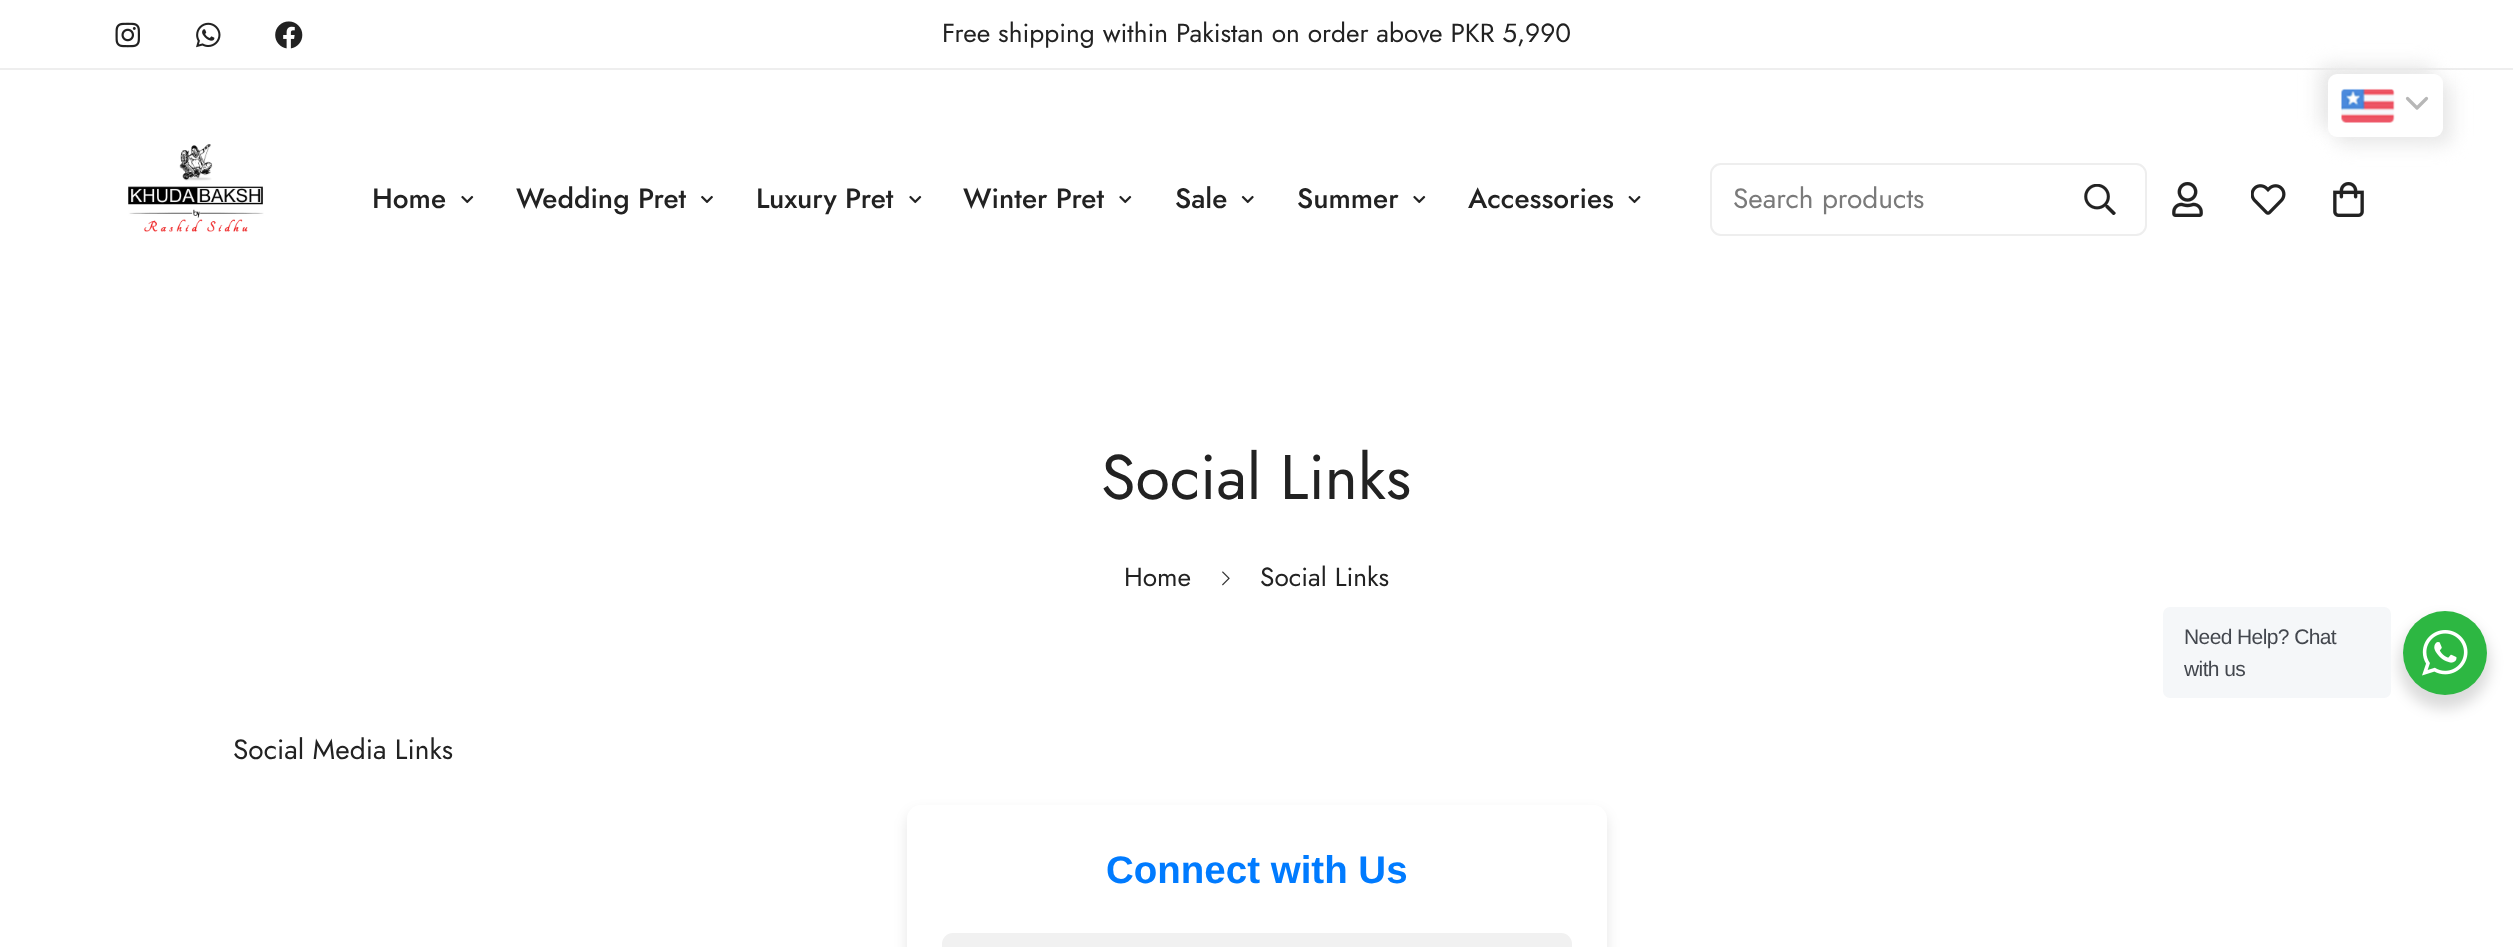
<svg xmlns="http://www.w3.org/2000/svg" width="2513" height="947">
<style>
.a{font:26.25px Jost;fill:#222}
.b{font:500 28px Jost;fill:#222}
.c{font:28px Jost;fill:#7a7a7a}
.d{font:63px Jost;fill:#222}
.e{font:28px Jost;fill:#222}
.f{font:bold 38.5px Liberation Sans;fill:#007bff}
.g{font:21px Liberation Sans;letter-spacing:-0.6px;fill:#43474e}
</style>
<rect width="100%" height="100%" fill="#fff"/>
<path fill="#eee" d="M0 68h2513v2H0z"/>
<image href="1.png" x="115" y="22" width="25" height="26"/>
<image href="2.png" x="196" y="22" width="25" height="26"/>
<image href="3.png" x="275" y="21" width="28" height="28"/>
<image href="4.png" x="128" y="144" width="136" height="88"/>
<image href="5.png" x="461" y="195" width="13" height="9"/>
<image href="6.png" x="701" y="195" width="12" height="8"/>
<image href="5.png" x="909" y="195" width="13" height="9"/>
<image href="5.png" x="1119" y="195" width="13" height="9"/>
<image href="7.png" x="1241" y="195" width="13" height="9"/>
<image href="5.png" x="1413" y="195" width="13" height="9"/>
<image href="8.png" x="1628" y="195" width="13" height="9"/>
<rect fill="none" stroke="#eee" stroke-width="2" x="1711" y="164" width="435" height="71" rx="10"/>
<image href="9.png" x="2084" y="184" width="32" height="31"/>
<image href="10.png" x="2172" y="182" width="31" height="35"/>
<image href="11.png" x="2251" y="184" width="35" height="31"/>
<image href="12.png" x="2333" y="182" width="31" height="35"/>
<rect fill="#e8e8e8" filter="blur(9px)" x="2319" y="65" width="115" height="63" rx="9"/>
<rect fill="#e8e8e8" filter="blur(9px)" x="2336" y="82" width="116" height="63" rx="9"/>
<rect fill="#fff" x="2328" y="74" width="115" height="63" rx="9"/>
<image href="13.png" x="2341" y="88" width="54" height="35"/>
<path fill="none" stroke="#b7b7b7" stroke-width="3.2" stroke-linecap="round" stroke-linejoin="round" d="M2407.5 98.5l9.5 9.5l9.5-9.5"/>
<image href="14.png" x="1222" y="571" width="8" height="15"/>
<rect fill="#0000001a" filter="blur(7px)" x="907" y="812" width="700" height="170" rx="14"/>
<rect fill="#fff" x="907" y="805" width="700" height="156" rx="14"/>
<rect fill="#f1f1f1" x="942" y="933" width="630" height="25" rx="11"/>
<rect fill="#00000024" filter="blur(7px)" x="2399" y="618" width="91" height="91" rx="45.5"/>
<rect fill="#f5f7f9" x="2163" y="607" width="228" height="91" rx="7"/>
<circle fill="#2db742" cx="2445" cy="653" r="42"/>
<image href="15.png" x="2422" y="630" width="46" height="46"/>
<text class="a" x="942" y="42">Free shipping within Pakistan on order above PKR 5,990</text>
<text class="b" x="372" y="208">Home</text>
<text class="b" x="516" y="208">Wedding Pret</text>
<text class="b" x="756" y="208">Luxury Pret</text>
<text class="b" x="963" y="208">Winter Pret</text>
<text class="b" x="1175" y="208">Sale</text>
<text class="b" x="1297" y="208">Summer</text>
<text class="b" x="1468" y="208">Accessories</text>
<text class="c" x="1733" y="208">Search products</text>
<text class="d" x="1101" y="499">Social Links</text>
<text class="a" x="1124" y="586">Home</text>
<text class="a" x="1260" y="586">Social Links</text>
<text class="e" x="233" y="759">Social Media Links</text>
<text class="f" x="1106" y="883">Connect with Us</text>
<text class="g" x="2184" y="644">Need Help? Chat</text>
<text class="g" x="2184" y="676">with us</text>
</svg>
